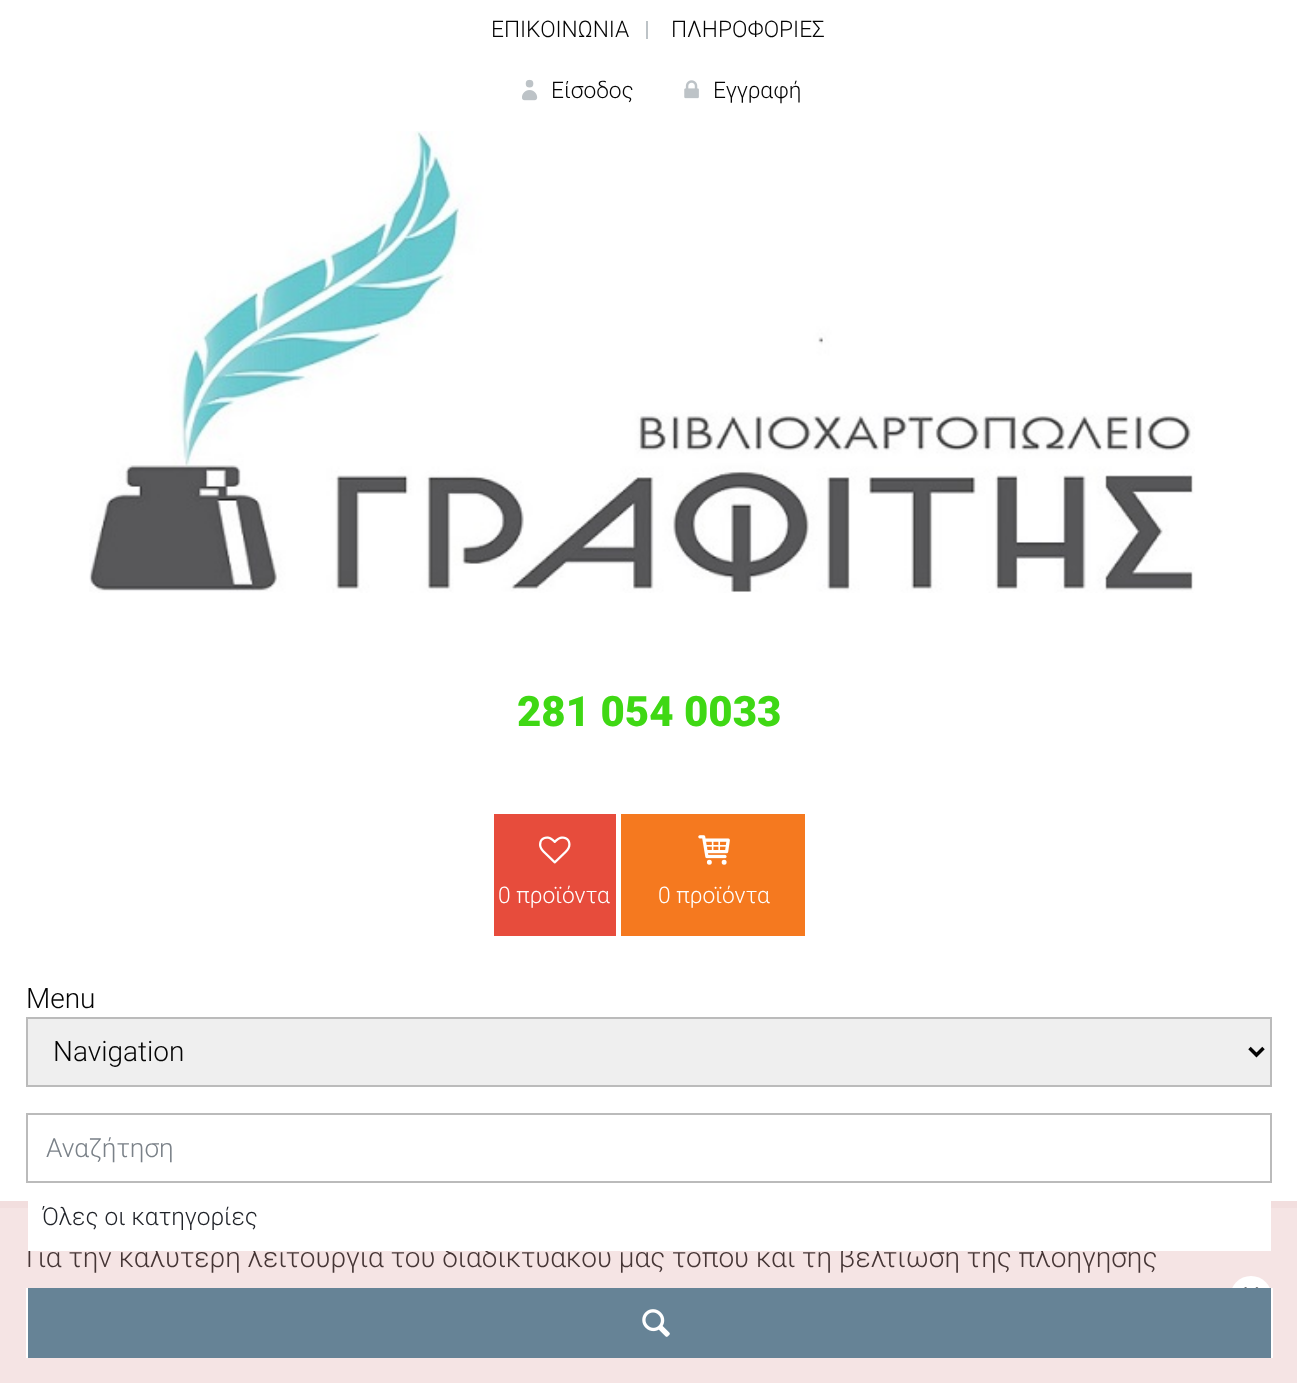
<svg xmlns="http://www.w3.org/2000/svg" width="1297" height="1383">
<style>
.a{font:300 22.75px Roboto;fill:#040404}
.b{font:900 42px Roboto;fill:#3fd814}
.c{font:300 22.75px Roboto;fill:#fff}
.d{font:300 28px Roboto;fill:#040404}
.e{font:300 26.25px Roboto;fill:#7a8188}
.f{font:300 28px Roboto;fill:#453535}
.g{font:300 24.5px Roboto;fill:#1f2228}
</style>
<rect width="100%" height="100%" fill="#fff"/>
<path fill="#bdc3c7" d="M646 21h2v18H646z"/>
<image href="1.png" x="522" y="79" width="16" height="22"/>
<image href="2.png" x="684" y="80" width="15" height="19"/>
<image href="3.png" x="89" y="131" width="1106" height="462"/>
<path fill="#e74c3c" d="M494 814h122v122H494z"/>
<image href="4.png" x="539" y="836" width="32" height="28"/>
<path fill="#f5791f" d="M621 814h184v122H621z"/>
<image href="5.png" x="698" y="835" width="32" height="30"/>
<path fill="#efefef" stroke="#bbb" stroke-width="2" d="M27 1018h1244v68H27z"/>
<path fill="none" stroke="#040404" stroke-width="3.5" d="M1249.5 1048l7 7l7-7"/>
<path fill="none" stroke="#bbb" stroke-width="2" d="M27 1114h1244v68H27z"/>
<path fill="#f5e4e4" d="M0 1208h1297v175H0z"/>
<circle fill="#fff" cx="1251" cy="1297" r="21"/>
<path fill="#fff" d="M1271 1288h2v70H1271z"/>
<path fill="#fff" d="M26 1288h2v70H26z"/>
<path fill="#668396" d="M28 1288h1243v70H28z"/>
<image href="6.png" x="642" y="1309" width="28" height="28"/>
<path fill="#f2dede" d="M0 1201h1297v7H0z"/>
<image href="7.png" x="1244" y="1287" width="15" height="1"/>
<text class="a" x="491" y="37">ΕΠΙΚΟΙΝΩΝΙΑ</text>
<text class="a" x="671" y="37">ΠΛΗΡΟΦΟΡΙΕΣ</text>
<text class="a" x="551" y="98">Είσοδος</text>
<text class="a" x="713" y="98">Εγγραφή</text>
<text class="b" x="517" y="726">281 054 0033</text>
<text class="c" x="498" y="903">0 προϊόντα</text>
<text class="c" x="658" y="903">0 προϊόντα</text>
<text class="d" x="26" y="1008">Menu</text>
<text class="d" x="53" y="1061">Navigation</text>
<text class="e" x="46" y="1157">Αναζήτηση</text>
<text class="f" x="26" y="1267">Για την καλύτερη λειτουργία του διαδικτυακού μας τόπου και τη βελτίωση της πλοήγησής</text>
<path fill="#fff" d="M28 1201h1243v50H28z"/>
<text class="g" x="42" y="1225">Όλες οι κατηγορίες</text>
</svg>
